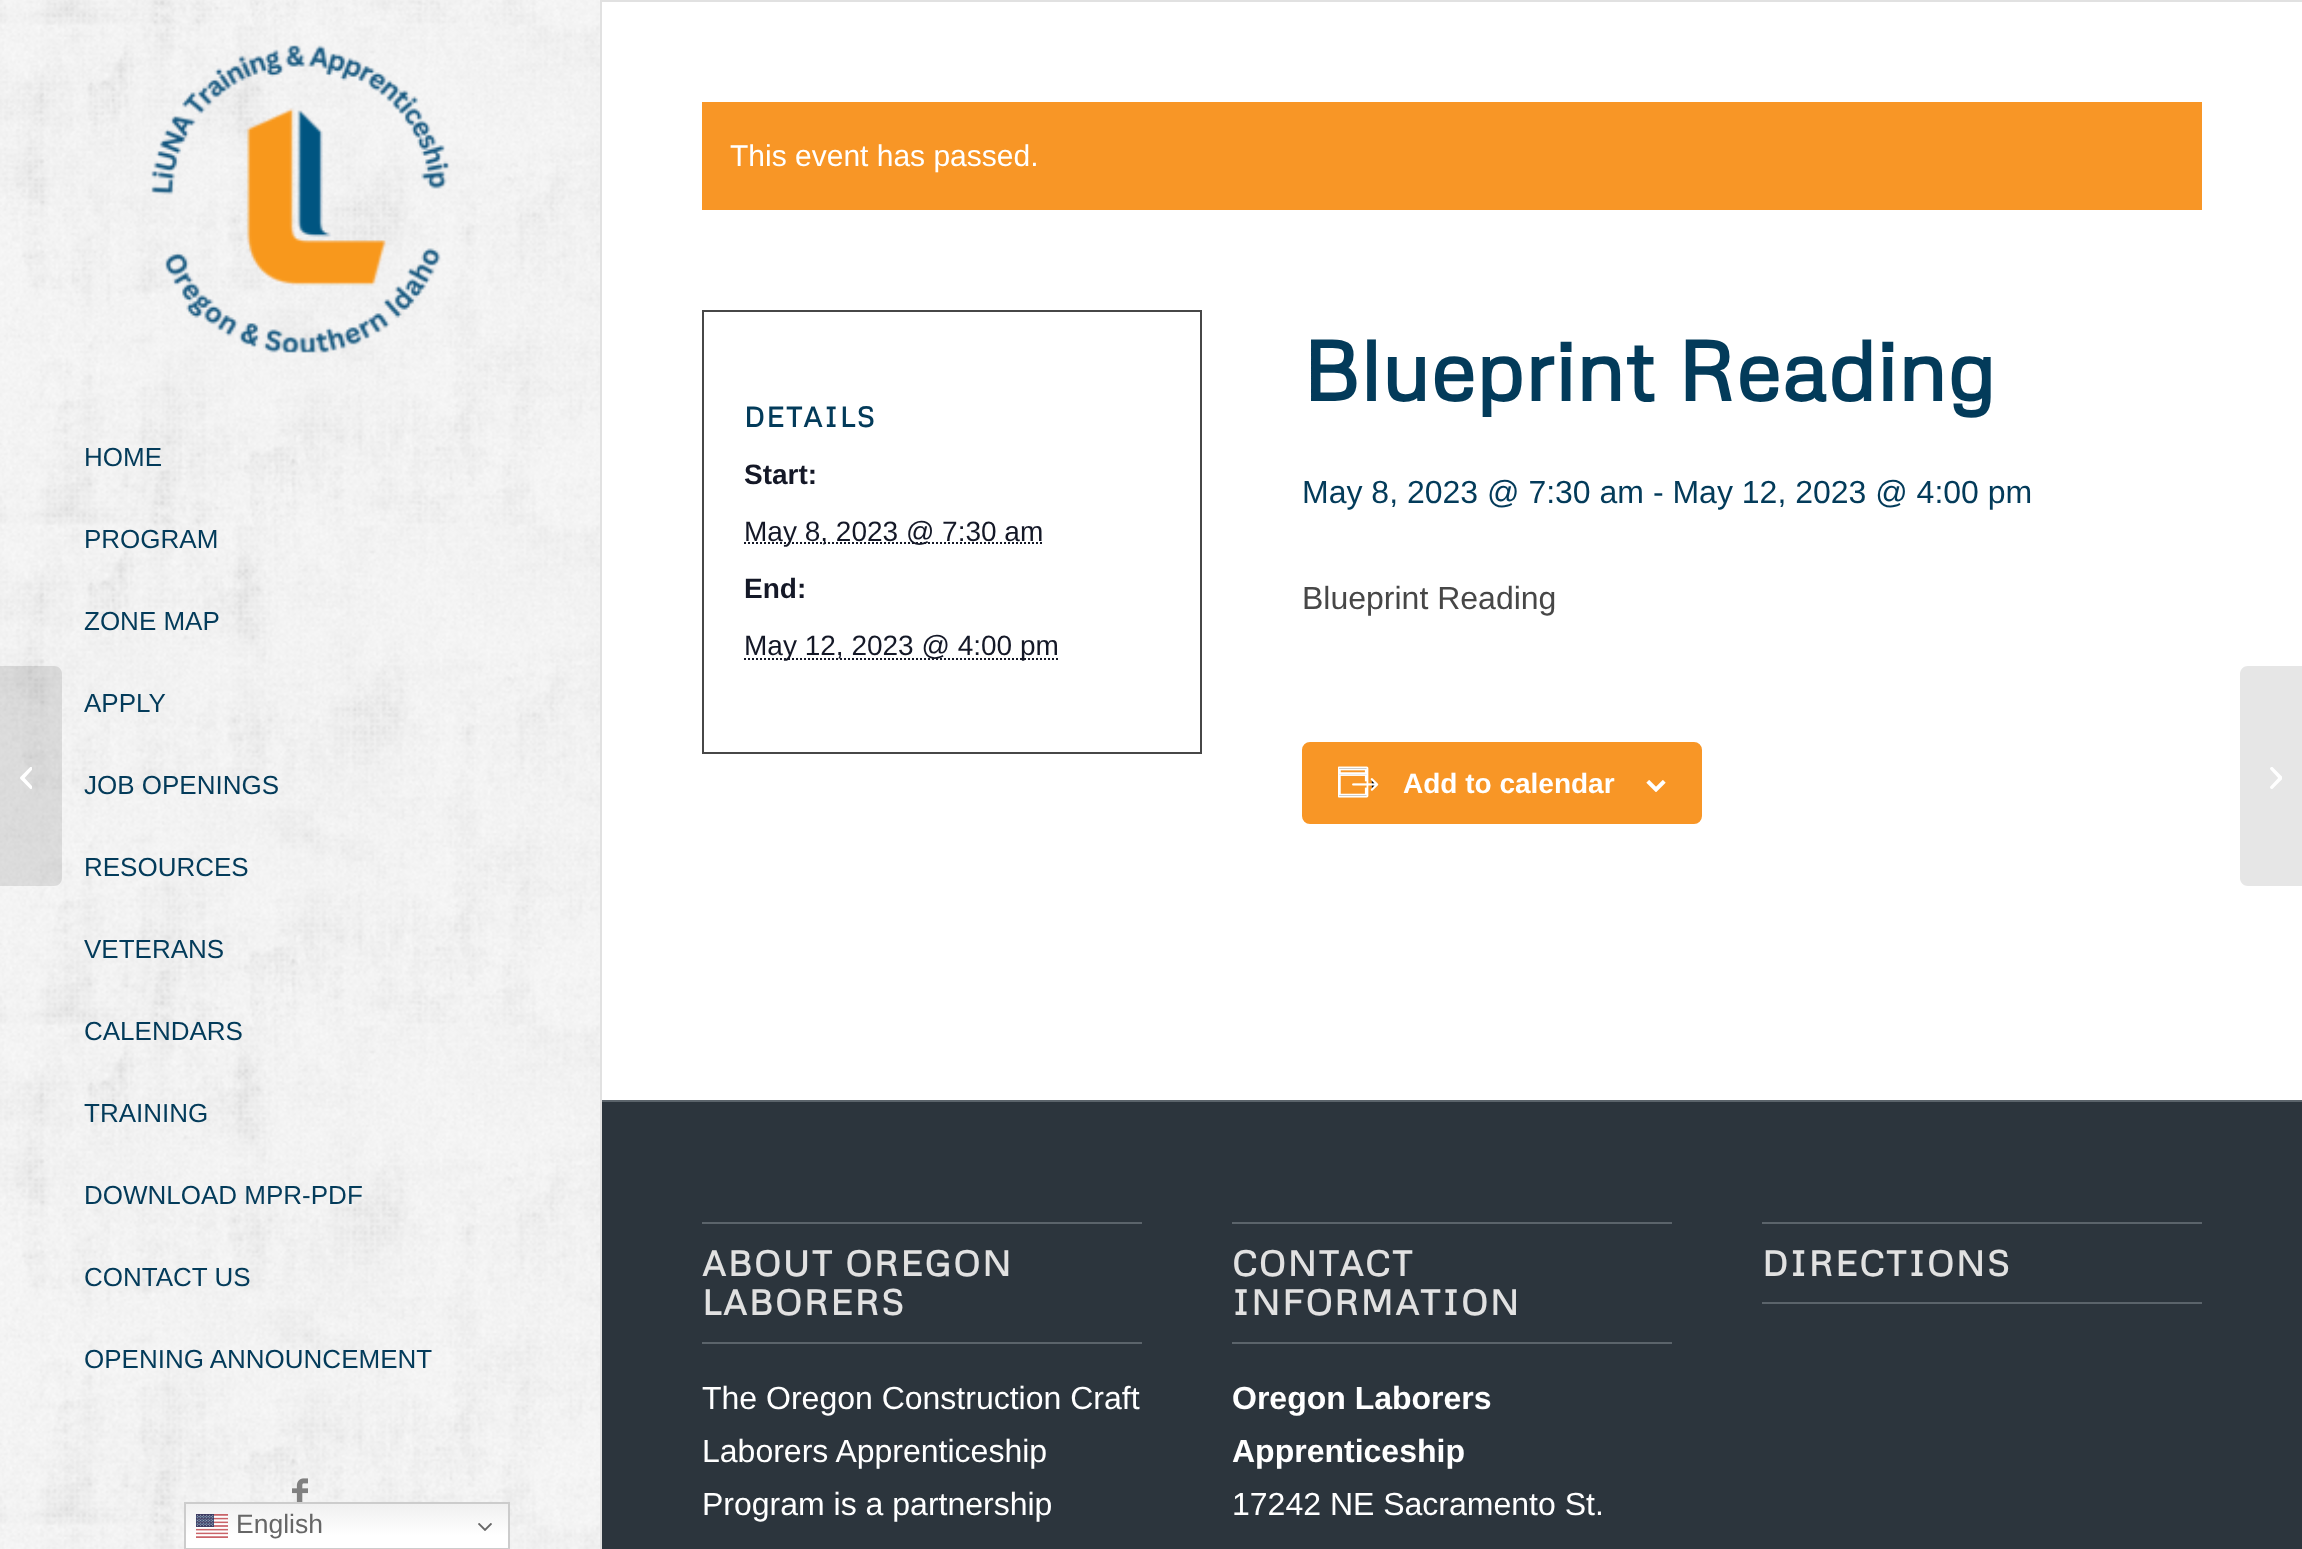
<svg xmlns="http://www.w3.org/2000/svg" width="2302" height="1549">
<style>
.a{font:26px Liberation Sans;fill:#033b5a}
.b{font:30px Liberation Sans;fill:#fff}
.c{font:bold 28px Metrophobic;letter-spacing:2px;fill:#033b5a}
.d{font:bold 28px Liberation Sans;fill:#141827}
.e{font:28px Liberation Sans;fill:#141827}
.f{font:bold 84px Metrophobic;fill:#033b5a}
.g{font:32px Liberation Sans;fill:#033b5a}
.h{font:32px Liberation Sans;fill:#474747}
.i{font:bold 28px Liberation Sans;fill:#fff}
.j{font:bold 35.25px Metrophobic;letter-spacing:2px;fill:#e1e1e1}
.k{font:32px Liberation Sans;fill:#fff}
.l{font:bold 32px Liberation Sans;fill:#fff}
.m{font:26.5px Liberation Sans;fill:#666}
</style>
<defs>
<linearGradient id="g1" gradientUnits="userSpaceOnUse" x1="347" y1="1502" x2="347" y2="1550"><stop offset="0" stop-color="#efefef"/><stop offset="0.7" stop-color="#fff"/></linearGradient>
</defs>
<rect width="100%" height="100%" fill="#fff"/>
<image href="2.png" x="0" y="0" width="600" height="1549"/>
<path fill="#0000001a" d="M0 666h54c4.5 0 8 3.5 8 8v204c0 4.5-3.5 8-8 8h-54z"/>
<image href="1.png" x="20" y="767" width="12" height="22"/>
<image href="3.png" x="151" y="45" width="299" height="308"/>
<image href="4.png" x="292" y="1478" width="16" height="24"/>
<path fill="#e1e1e1" d="M600 0h2v1549H600z"/>
<path fill="#e1e1e1" d="M602 0h1700v2H602z"/>
<path fill="#f89626" d="M702 102h1500v108H702z"/>
<path fill="none" stroke="#474747" stroke-width="2" d="M703 311h498v442H703z"/>
<path fill="none" stroke="#141827" stroke-width="2" stroke-dasharray="2 2" d="M744 543h299"/>
<path fill="none" stroke="#141827" stroke-width="2" stroke-dasharray="2 2" d="M744 659h315"/>
<rect fill="#f89626" stroke="#f89626" stroke-width="2" x="1303" y="743" width="398" height="80" rx="7"/>
<image href="5.png" x="1338" y="766" width="41" height="32"/>
<image href="6.png" x="1646" y="780" width="20" height="12"/>
<path fill="#2c353d" d="M602 1102h1700v447H602z"/>
<path fill="#5b646b" d="M602 1100h1700v2H602z"/>
<path fill="#5b646b" d="M702 1222h440v2H702z"/>
<path fill="#5b646b" d="M702 1342h440v2H702z"/>
<path fill="#5b646b" d="M1232 1222h440v2H1232z"/>
<path fill="#5b646b" d="M1232 1342h440v2H1232z"/>
<path fill="#5b646b" d="M1762 1222h440v2H1762z"/>
<path fill="#5b646b" d="M1762 1302h440v2H1762z"/>
<path fill="#e6e6e6" d="M2248 666h54v220h-54c-4.5 0-8-3.5-8-8v-204c0-4.5 3.5-8 8-8z"/>
<image href="7.png" x="2270" y="767" width="12" height="22"/>
<path fill="url(#g1)" d="M186 1504h322v44H186z"/>
<path fill="none" stroke="#ccc" stroke-width="2" d="M185 1503h324v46H185z"/>
<image href="8.png" x="196" y="1514" width="32" height="24"/>
<image href="9.png" x="478" y="1523" width="14" height="8"/>
<text class="a" x="84" y="466">HOME</text>
<text class="a" x="84" y="548">PROGRAM</text>
<text class="a" x="84" y="630">ZONE MAP</text>
<text class="a" x="84" y="712">APPLY</text>
<text class="a" x="84" y="794">JOB OPENINGS</text>
<text class="a" x="84" y="876">RESOURCES</text>
<text class="a" x="84" y="958">VETERANS</text>
<text class="a" x="84" y="1040">CALENDARS</text>
<text class="a" x="84" y="1122">TRAINING</text>
<text class="a" x="84" y="1204">DOWNLOAD MPR-PDF</text>
<text class="a" x="84" y="1286">CONTACT US</text>
<text class="a" x="84" y="1368">OPENING ANNOUNCEMENT</text>
<text class="b" x="730" y="166">This event has passed.</text>
<text class="c" x="744" y="427">DETAILS</text>
<text class="d" x="744" y="484">Start:</text>
<text class="e" x="744" y="541">May 8, 2023 @ 7:30 am</text>
<text class="d" x="744" y="598">End:</text>
<text class="e" x="744" y="655">May 12, 2023 @ 4:00 pm</text>
<text class="f" x="1302" y="401">Blueprint Reading</text>
<text class="g" x="1302" y="503">May 8, 2023 @ 7:30 am - May 12, 2023 @ 4:00 pm</text>
<text class="h" x="1302" y="609">Blueprint Reading</text>
<text class="i" x="1403" y="793">Add to calendar</text>
<text class="j" x="702" y="1276">ABOUT OREGON</text>
<text class="j" x="702" y="1315">LABORERS</text>
<text class="k" x="702" y="1409">The Oregon Construction Craft</text>
<text class="k" x="702" y="1462">Laborers Apprenticeship</text>
<text class="k" x="702" y="1515">Program is a partnership</text>
<text class="j" x="1232" y="1276">CONTACT</text>
<text class="j" x="1232" y="1315">INFORMATION</text>
<text class="l" x="1232" y="1409">Oregon Laborers</text>
<text class="l" x="1232" y="1462">Apprenticeship</text>
<text class="k" x="1232" y="1515">17242 NE Sacramento St.</text>
<text class="j" x="1762" y="1276">DIRECTIONS</text>
<text class="m" x="236" y="1533">English</text>
</svg>
